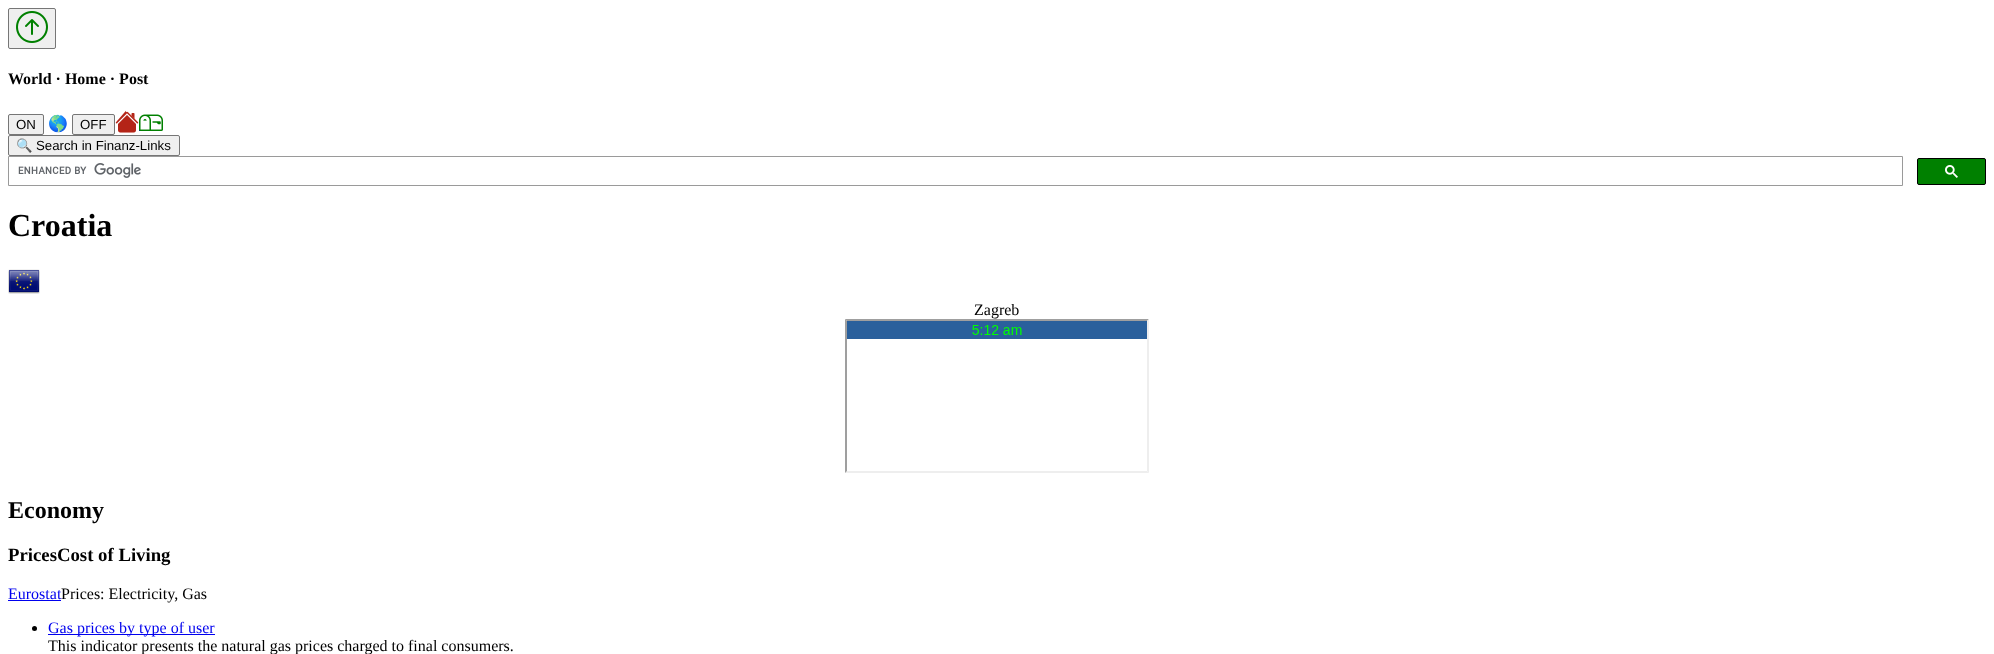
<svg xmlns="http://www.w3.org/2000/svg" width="1994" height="654">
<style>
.a{font:bold 16px Liberation Serif;fill:#000}
.b{font:13.25px Liberation Sans;fill:#000}
.c{font:16px Noto Color Emoji;fill:#000}
.d{font:13.25px Noto Color Emoji;fill:#000}
.e{font:bold 32px Liberation Serif;fill:#000}
.f{font:16px Liberation Serif;fill:#000}
.g{font:bold 24px Liberation Serif;fill:#000}
.h{font:bold 18.75px Liberation Serif;fill:#000}
.i{font:16px Liberation Serif;fill:#00e}
</style>
<rect width="100%" height="100%" fill="#fff"/>
<rect fill="#efefef" stroke="#767676" x="8.5" y="8.5" width="47" height="40" rx="1.5"/>
<image href="1.png" x="16" y="11" width="32" height="32"/>
<rect fill="#efefef" stroke="#767676" x="8.5" y="114.5" width="35" height="20" rx="1.5"/>
<rect fill="#efefef" stroke="#767676" x="72.5" y="114.5" width="42" height="20" rx="1.5"/>
<image href="2.png" x="115" y="110" width="24" height="23"/>
<path fill="#00e" d="M139 130h4v1H139z"/>
<image href="3.png" x="139" y="114" width="24" height="17"/>
<rect fill="#efefef" stroke="#767676" x="8.5" y="135.5" width="171" height="20" rx="1.5"/>
<path fill="none" stroke="#9a9a9a" d="M8.5 156.5h1894v29H8.5z"/>
<image href="4.png" x="18" y="163" width="123" height="15"/>
<rect fill="#008000" stroke="#000" x="1917.5" y="158.5" width="68" height="26" rx="1.5"/>
<image href="5.png" x="1945" y="165" width="13" height="13"/>
<image href="6.png" x="8" y="269" width="32" height="25"/>
<path fill="#9f9f9f" d="M845 319h304l-2 2h-300z"/>
<path fill="#eee" d="M1149 319v154l-2-2v-150z"/>
<path fill="#eee" d="M1149 473h-304l2-2h300z"/>
<path fill="#9f9f9f" d="M845 473v-154l2 2v150z"/>
<image href="7.png" x="847" y="321" width="300" height="18"/>
<path fill="#00e" d="M8 600h53v1H8z"/>
<circle fill="#000" cx="34.5" cy="628.5" r="2.5"/>
<path fill="#00e" d="M48 634h167v1H48z"/>
<text class="a" x="8" y="84">World · Home · Post</text>
<text class="b" x="16" y="129">ON</text>
<text class="c" x="48" y="129">🌎</text>
<text class="b" x="80" y="129">OFF</text>
<text class="d" x="16" y="150">🔍</text>
<text class="b" x="36" y="150">Search in Finanz-Links</text>
<text class="e" x="8" y="236">Croatia</text>
<text class="f" x="974" y="315">Zagreb</text>
<text class="g" x="8" y="518">Economy</text>
<text class="h" x="8" y="561">PricesCost of Living</text>
<text class="i" x="8" y="599">Eurostat</text>
<text class="f" x="61" y="599">Prices: Electricity, Gas</text>
<text class="i" x="48" y="633">Gas prices by type of user</text>
<text class="f" x="48" y="651">This indicator presents the natural gas prices charged to final consumers.</text>
</svg>
